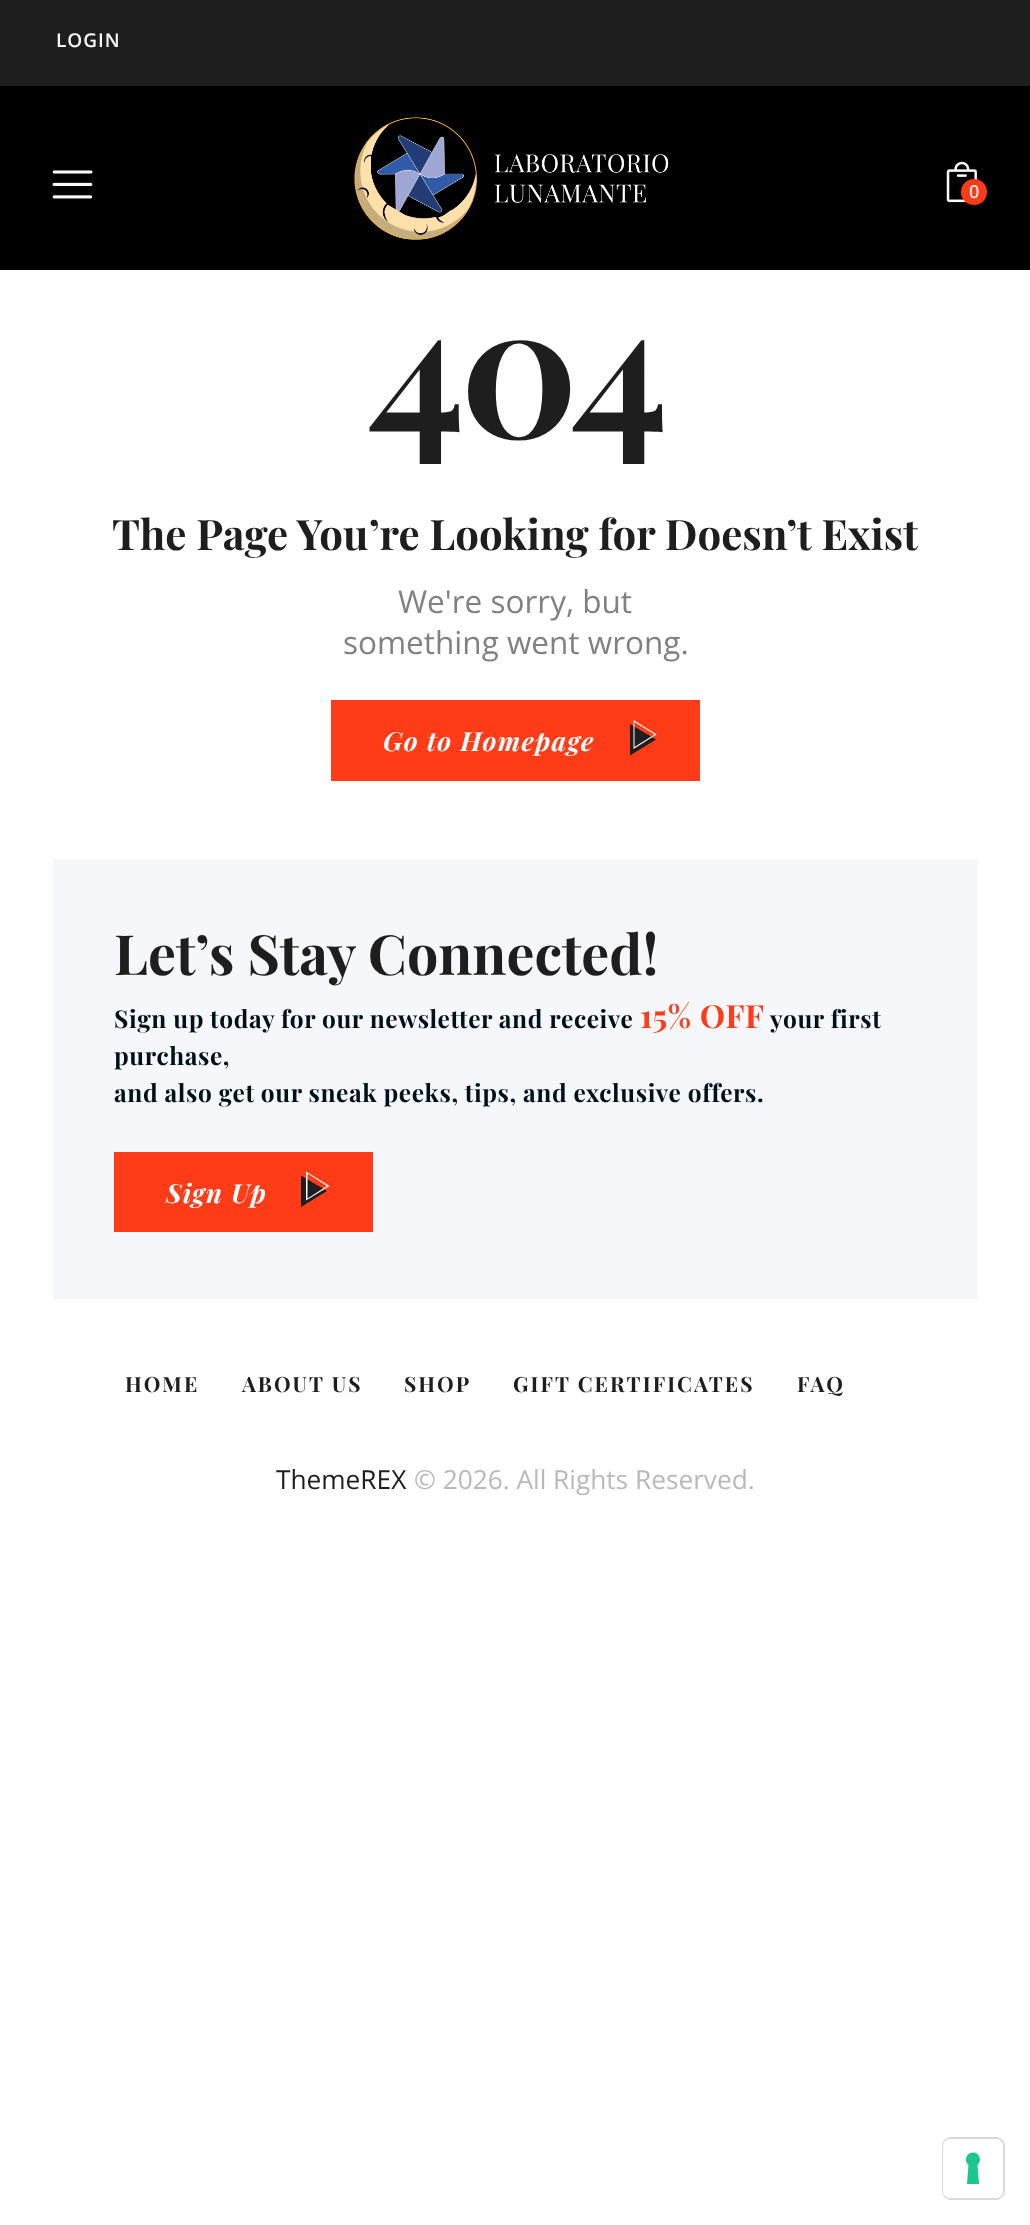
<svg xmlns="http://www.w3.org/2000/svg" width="1030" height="2225">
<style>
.a{font:600 19px Open Sans;letter-spacing:1px;fill:#f9f9f9}
.b{font:500 18px Open Sans;fill:#fff}
.c{font:bold 184px Playfair Display;letter-spacing:-5.5px;fill:#1e1e1e}
.d{font:bold 42px Playfair Display;fill:#1e1e1e}
.e{font:31.5px Open Sans;fill:#818181}
.f{font:italic bold 26.25px Playfair Display;letter-spacing:1.25px;fill:#fff}
.g{font:bold 55.5px Playfair Display;fill:#1e1e1e}
.h{font:bold 24.5px Playfair Display;letter-spacing:0.6px;fill:#00111a}
.i{font:bold 32px Playfair Display;letter-spacing:0.6px;fill:#ff3b18}
.j{font:bold 21px Playfair Display;letter-spacing:2.1px;fill:#1e1e1e}
.k{font:26.25px Open Sans;fill:#1e1e1e}
.l{font:26.25px Open Sans;fill:#b9b9b9}
</style>
<rect width="100%" height="100%" fill="#fff"/>
<path fill="#1e1e1e" d="M0 0h1030v86H0z"/>
<path fill="#000" d="M0 86h1030v184H0z"/>
<image href="1.png" x="52" y="170" width="41" height="29"/>
<image href="2.png" x="354" y="117" width="315" height="123"/>
<image href="3.png" x="946" y="161" width="31" height="42"/>
<circle fill="#ff3b18" cx="974" cy="192" r="13"/>
<path fill="#ff3b18" d="M331 700h369v81H331z"/>
<path fill="#1e1e1e" d="M656 739.5l-26 16v-31.5z"/>
<path fill="#fff" d="M654.5 734.5l-20-12.5v25zm2 0l-23 14.5v-29z"/>
<path fill="#f5f7fa" d="M53 859h925v440H53z"/>
<path fill="#ff3b18" d="M114 1152h259v80H114z"/>
<path fill="#1e1e1e" d="M327 1191l-26 16v-31.5z"/>
<path fill="#fff" d="M327 1186l-19.5-12.5v25zm2.5 0l-23.5 14.5v-29z"/>
<rect fill="none" stroke="#d9d9d9" stroke-width="2" x="943" y="2138" width="61" height="61" rx="8"/>
<rect fill="#fff" x="943" y="2139" width="60" height="59" rx="7"/>
<path fill="#1cc691" fill-rule="evenodd" d="M973 2152.5c6.5 0 9.5 8 4.5 12.5l1.5 19h-12l1.5-19c-5-4.5-2-12.5 4.5-12.5z"/>
<text class="a" x="56" y="47">LOGIN</text>
<text class="b" x="969" y="198">0</text>
<text class="c" x="368" y="438">404</text>
<text class="d" x="112" y="550">The Page You’re Looking for Doesn’t Exist</text>
<text class="e" x="398" y="613">We're sorry, but</text>
<text class="e" x="343" y="654">something went wrong.</text>
<text class="f" x="383" y="751">Go to Homepage</text>
<text class="g" x="114" y="975">Let’s Stay Connected!</text>
<text class="h" x="114" y="1028">Sign up today for our newsletter and receive</text>
<text class="i" x="640" y="1028">15% OFF</text>
<text class="h" x="770" y="1028">your first</text>
<text class="h" x="114" y="1065">purchase,</text>
<text class="h" x="114" y="1102">and also get our sneak peeks, tips, and exclusive offers.</text>
<text class="f" x="166" y="1203">Sign Up</text>
<text class="j" x="125" y="1392">HOME</text>
<text class="j" x="242" y="1392">ABOUT US</text>
<text class="j" x="404" y="1392">SHOP</text>
<text class="j" x="513" y="1392">GIFT CERTIFICATES</text>
<text class="j" x="797" y="1392">FAQ</text>
<text class="k" x="276" y="1489">ThemeREX</text>
<text class="l" x="414" y="1489">© 2026. All Rights Reserved.</text>
</svg>
